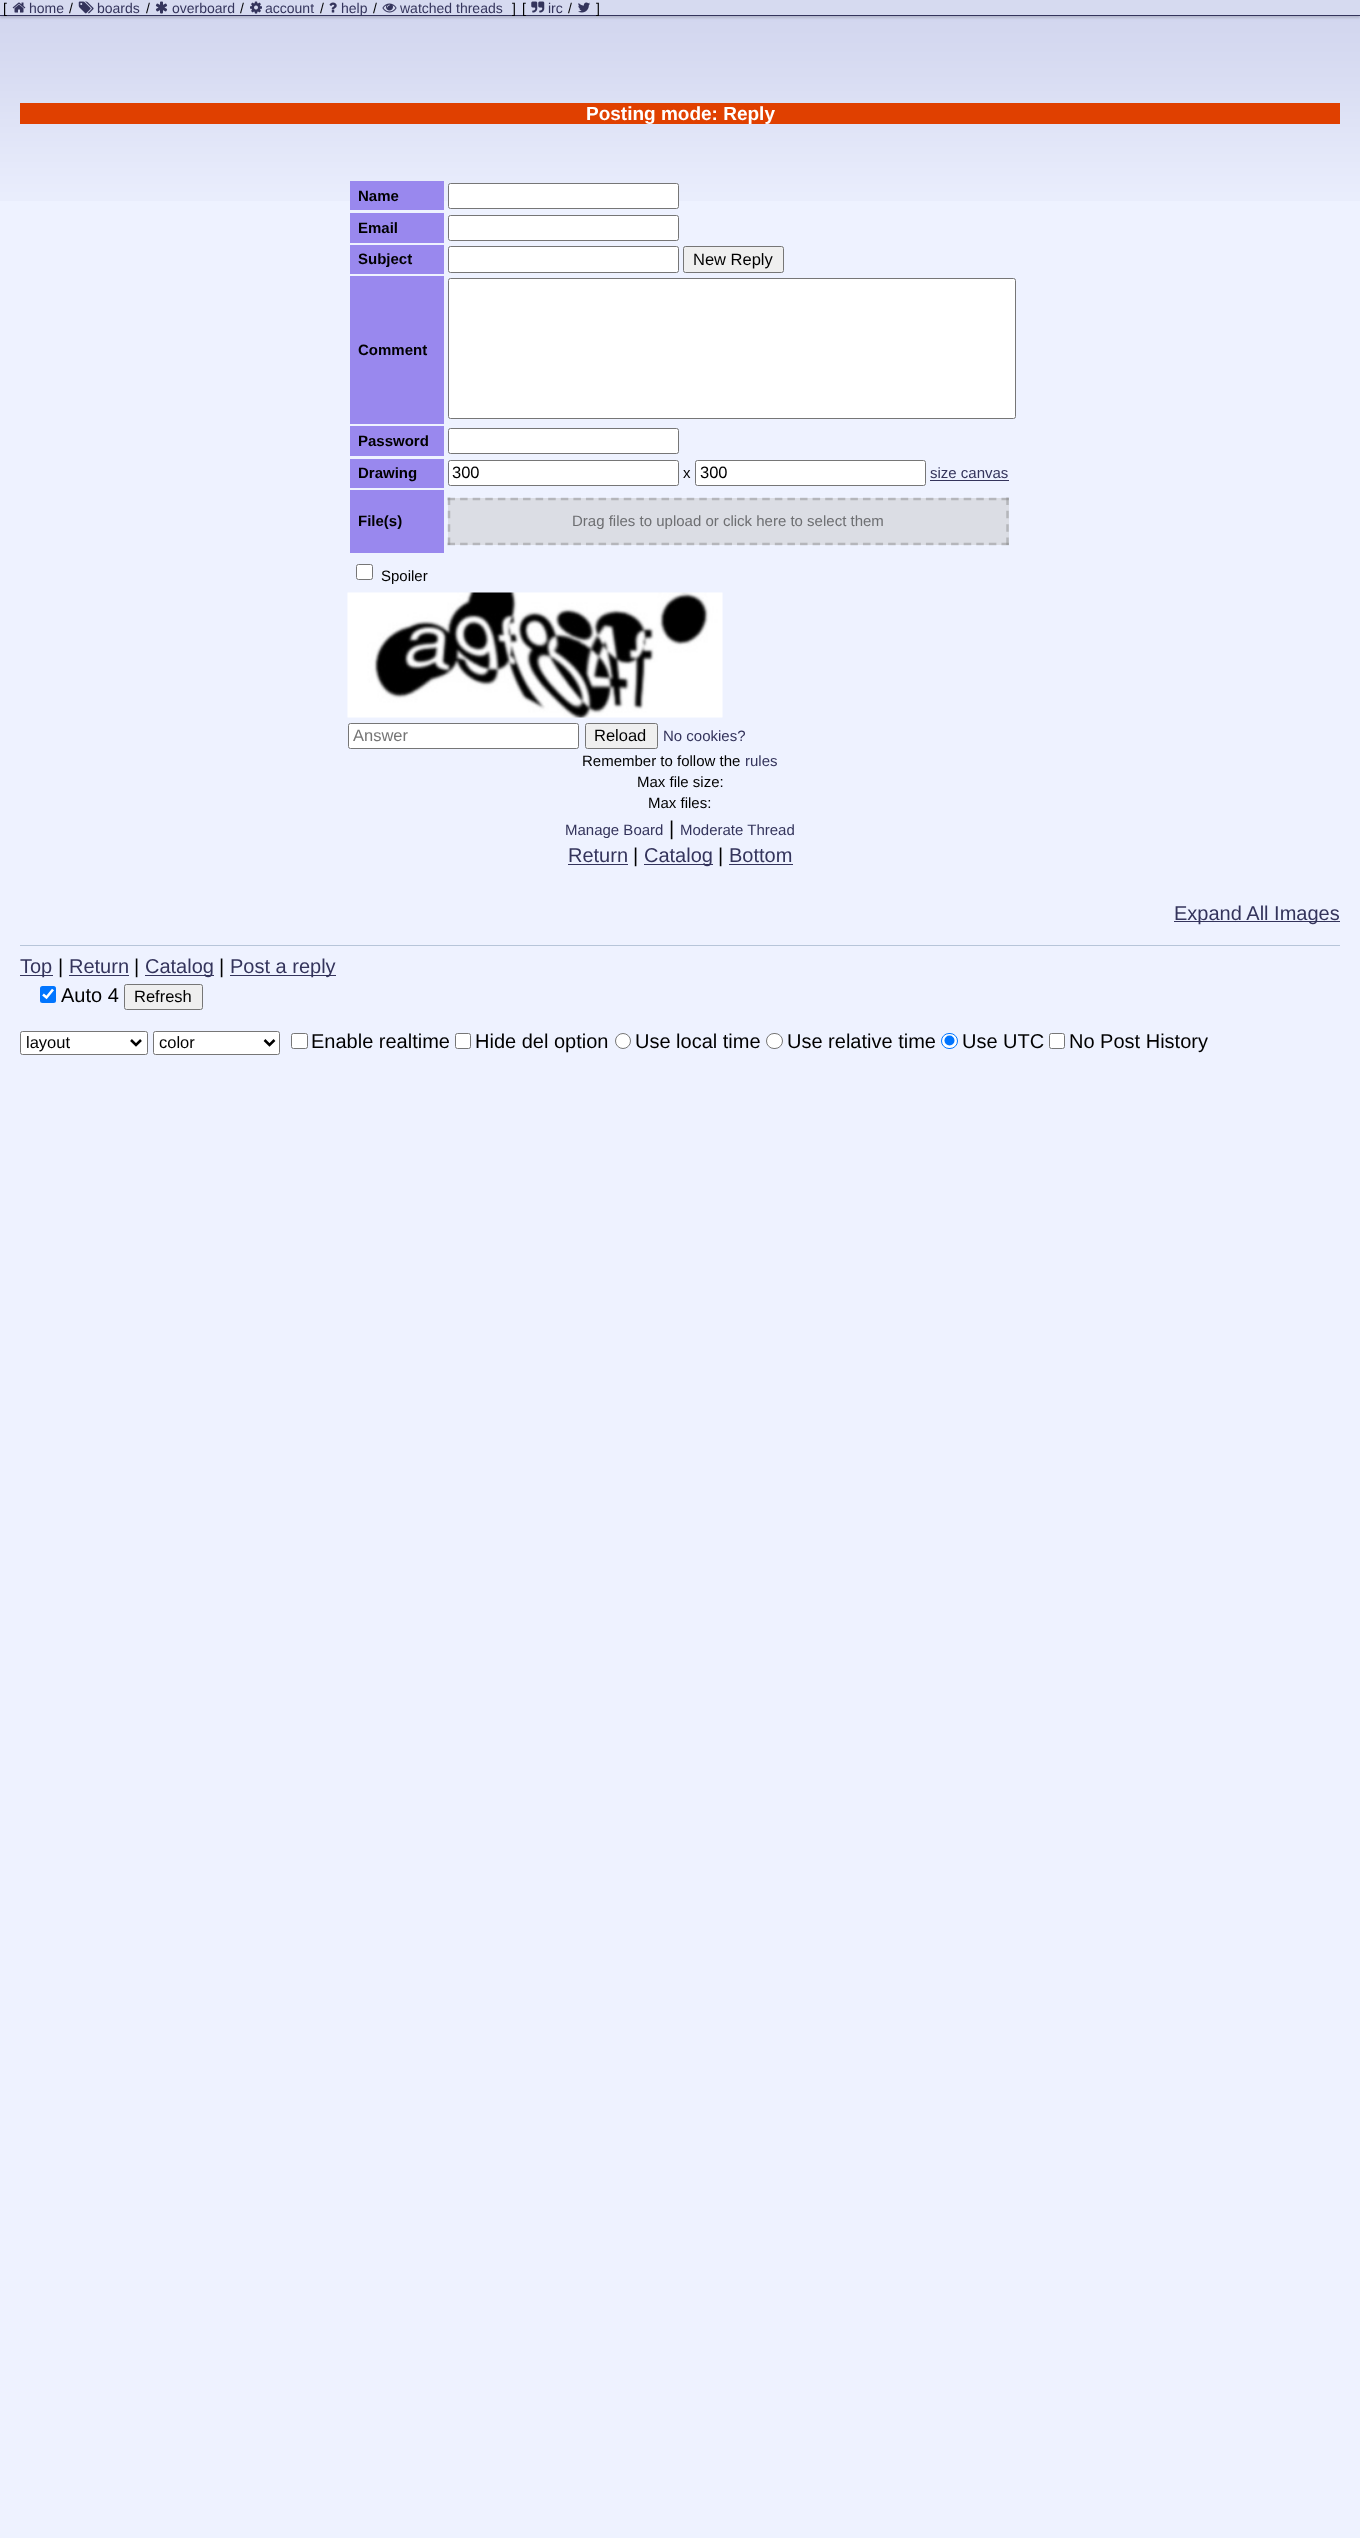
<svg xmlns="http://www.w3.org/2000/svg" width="1360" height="2538">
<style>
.a{font:14px Liberation Sans;fill:#000}
.b{font:14px Liberation Sans;fill:#34345c}
.c{font:bold 19px Liberation Sans;fill:#fff}
.d{font:bold 15px Liberation Sans;fill:#000}
.e{font:16.5px Liberation Sans;fill:#000}
.f{font:15px Liberation Sans;fill:#000}
.g{font:15px Liberation Sans;fill:#34345c}
.h{font:15px Liberation Sans;fill:#6e6f72}
.i{font:16.5px Liberation Sans;fill:#757575}
.j{font:20px Liberation Sans;fill:#000}
.k{font:20px Liberation Sans;fill:#34345c}
</style>
<rect width="100%" height="100%" fill="#eef2ff"/>
<image href="1.png" x="0" y="16" width="1360" height="185"/>
<path fill="#00000026" filter="blur(1px)" d="M0 1h1360v17H0z"/>
<path fill="#d6daf0" d="M0 0h1360v15H0z"/>
<path fill="#34345c" d="M0 15h1360v1H0z"/>
<image href="2.png" x="12" y="2" width="14" height="11"/>
<image href="3.png" x="78" y="1" width="16" height="13"/>
<image href="4.png" x="155" y="1" width="13" height="13"/>
<image href="5.png" x="250" y="1" width="12" height="13"/>
<image href="6.png" x="329" y="2" width="8" height="11"/>
<image href="7.png" x="382" y="3" width="15" height="10"/>
<image href="8.png" x="531" y="1" width="14" height="12"/>
<image href="9.png" x="578" y="2" width="12" height="11"/>
<path fill="#e04000" d="M20 103h1320v21H20z"/>
<path fill="#98e" d="M350 181h94v29H350z"/>
<rect fill="#fff" stroke="#767676" x="448.5" y="183.5" width="230" height="25" rx="2"/>
<path fill="#98e" d="M350 213h94v30H350z"/>
<rect fill="#fff" stroke="#767676" x="448.5" y="215.5" width="230" height="25" rx="2"/>
<path fill="#98e" d="M350 245h94v29H350z"/>
<rect fill="#fff" stroke="#767676" x="448.5" y="246.5" width="230" height="26" rx="2"/>
<rect fill="#efefef" stroke="#767676" x="683.5" y="246.5" width="100" height="26" rx="2"/>
<path fill="#98e" d="M350 276h94v148H350z"/>
<rect fill="#fff" stroke="#767676" x="448.5" y="278.5" width="567" height="140" rx="2"/>
<path fill="#98e" d="M350 426h94v30H350z"/>
<rect fill="#fff" stroke="#767676" x="448.5" y="428.5" width="230" height="25" rx="2"/>
<path fill="#98e" d="M350 459h94v29H350z"/>
<rect fill="#fff" stroke="#767676" x="448.5" y="460.5" width="230" height="25" rx="2"/>
<rect fill="#fff" stroke="#767676" x="695.5" y="460.5" width="230" height="25" rx="2"/>
<path fill="#34345c" d="M930 480h79v1H930z"/>
<path fill="#98e" d="M350 490h94v63H350z"/>
<path fill="#dbdde4" d="M448 498h561v47H448z"/>
<path fill="none" stroke="#7d7d7d66" stroke-width="2.5" stroke-dasharray="7.5 5.09" d="M447.5 499h561.5"/>
<path fill="none" stroke="#7d7d7d66" stroke-width="2.5" stroke-dasharray="7.5 5.84" d="M1007.5 497.5v47.5"/>
<path fill="none" stroke="#7d7d7d66" stroke-width="2.5" stroke-dasharray="7.5 5.09" d="M447.5 544h561.5"/>
<path fill="none" stroke="#7d7d7d66" stroke-width="2.5" stroke-dasharray="7.5 5.84" d="M449 497.5v47.5"/>
<rect fill="#fff" stroke="#767676" x="356.5" y="564.5" width="16" height="15" rx="2"/>
<image href="10.png" x="347" y="592" width="376" height="126"/>
<rect fill="#fff" stroke="#767676" x="348.5" y="723.5" width="230" height="25" rx="2"/>
<rect fill="#efefef" stroke="#767676" x="585.5" y="723.5" width="72" height="25" rx="2"/>
<path fill="#34345c" d="M568 864h60v1H568z"/>
<path fill="#34345c" d="M644 864h69v1H644z"/>
<path fill="#34345c" d="M729 864h64v1H729z"/>
<path fill="#34345c" d="M1174 921h166v1H1174z"/>
<path fill="#b7c5d9" d="M20 945h1320v1H20z"/>
<path fill="#34345c" d="M20 975h33v1H20z"/>
<path fill="#34345c" d="M69 975h60v1H69z"/>
<path fill="#34345c" d="M145 975h69v1H145z"/>
<path fill="#34345c" d="M230 975h106v1H230z"/>
<rect fill="#0075ff" x="40" y="986" width="16" height="17" rx="2.5"/>
<path fill="none" stroke="#fff" stroke-width="2.6" d="M43 994.5l3.5 3l6.5-8"/>
<rect fill="#efefef" stroke="#767676" x="124.5" y="984.5" width="78" height="25" rx="2"/>
<rect fill="#fff" stroke="#767676" x="20.5" y="1031.5" width="127" height="23" rx="2"/>
<path fill="none" stroke="#000" stroke-width="2.5" d="M131 1040l5 5l5-5"/>
<rect fill="#fff" stroke="#767676" x="153.5" y="1031.5" width="126" height="23" rx="2"/>
<path fill="none" stroke="#000" stroke-width="2.5" d="M264.5 1040l5 5l5-5"/>
<rect fill="#fff" stroke="#767676" x="291.5" y="1033.5" width="16" height="15" rx="2"/>
<rect fill="#fff" stroke="#767676" x="455.5" y="1033.5" width="15" height="15" rx="2"/>
<circle fill="#fff" stroke="#767676" cx="623" cy="1041" r="7.5"/>
<rect fill="#fff" stroke="#767676" x="766.5" y="1033.5" width="16" height="15" rx="7.5"/>
<rect fill="#fff" stroke="#0075ff" x="941.5" y="1033.5" width="16" height="15" rx="7.5"/>
<circle fill="#0075ff" cx="949.5" cy="1040.5" r="5"/>
<rect fill="#fff" stroke="#767676" x="1049.5" y="1033.5" width="15" height="15" rx="2"/>
<text class="a" x="3" y="13">[</text>
<text class="b" x="29" y="13">home</text>
<text class="a" x="69" y="13">/</text>
<text class="b" x="97" y="13">boards</text>
<text class="a" x="146" y="13">/</text>
<text class="b" x="172" y="13">overboard</text>
<text class="a" x="240" y="13">/</text>
<text class="b" x="265" y="13">account</text>
<text class="a" x="320" y="13">/</text>
<text class="b" x="341" y="13">help</text>
<text class="a" x="373" y="13">/</text>
<text class="b" x="400" y="13">watched threads</text>
<text class="a" x="512" y="13">]</text>
<text class="a" x="522" y="13">[</text>
<text class="b" x="548" y="13">irc</text>
<text class="a" x="568" y="13">/</text>
<text class="a" x="596" y="13">]</text>
<text class="c" x="586" y="120">Posting mode: Reply</text>
<text class="d" x="358" y="201">Name</text>
<text class="d" x="358" y="233">Email</text>
<text class="d" x="358" y="264">Subject</text>
<text class="e" x="693" y="265">New Reply</text>
<text class="d" x="358" y="355">Comment</text>
<text class="d" x="358" y="446">Password</text>
<text class="d" x="358" y="478">Drawing</text>
<text class="e" x="452" y="478">300</text>
<text class="f" x="683" y="478">x</text>
<text class="e" x="700" y="478">300</text>
<text class="g" x="930" y="478">size canvas</text>
<text class="d" x="358" y="526">File(s)</text>
<text class="h" x="572" y="526">Drag files to upload or click here to select them</text>
<text class="f" x="381" y="581">Spoiler</text>
<text class="i" x="353" y="741">Answer</text>
<text class="e" x="594" y="741">Reload</text>
<text class="g" x="663" y="741">No cookies?</text>
<text class="f" x="582" y="766">Remember to follow the</text>
<text class="g" x="745" y="766">rules</text>
<text class="f" x="637" y="787">Max file size:</text>
<text class="f" x="648" y="808">Max files:</text>
<text class="g" x="565" y="835">Manage Board</text>
<text class="j" x="669" y="835">|</text>
<text class="g" x="680" y="835">Moderate Thread</text>
<text class="k" x="568" y="862">Return</text>
<text class="j" x="633" y="862">|</text>
<text class="k" x="644" y="862">Catalog</text>
<text class="j" x="718" y="862">|</text>
<text class="k" x="729" y="862">Bottom</text>
<text class="k" x="1174" y="920">Expand All Images</text>
<text class="k" x="20" y="973">Top</text>
<text class="j" x="58" y="973">|</text>
<text class="k" x="69" y="973">Return</text>
<text class="j" x="134" y="973">|</text>
<text class="k" x="145" y="973">Catalog</text>
<text class="j" x="219" y="973">|</text>
<text class="k" x="230" y="973">Post a reply</text>
<text class="j" x="61" y="1002">Auto 4</text>
<text class="e" x="134" y="1002">Refresh</text>
<text class="e" x="26" y="1048">layout</text>
<text class="e" x="159" y="1048">color</text>
<text class="j" x="311" y="1048">Enable realtime</text>
<text class="j" x="475" y="1048">Hide del option</text>
<text class="j" x="635" y="1048">Use local time</text>
<text class="j" x="787" y="1048">Use relative time</text>
<text class="j" x="962" y="1048">Use UTC</text>
<text class="j" x="1069" y="1048">No Post History</text>
</svg>
